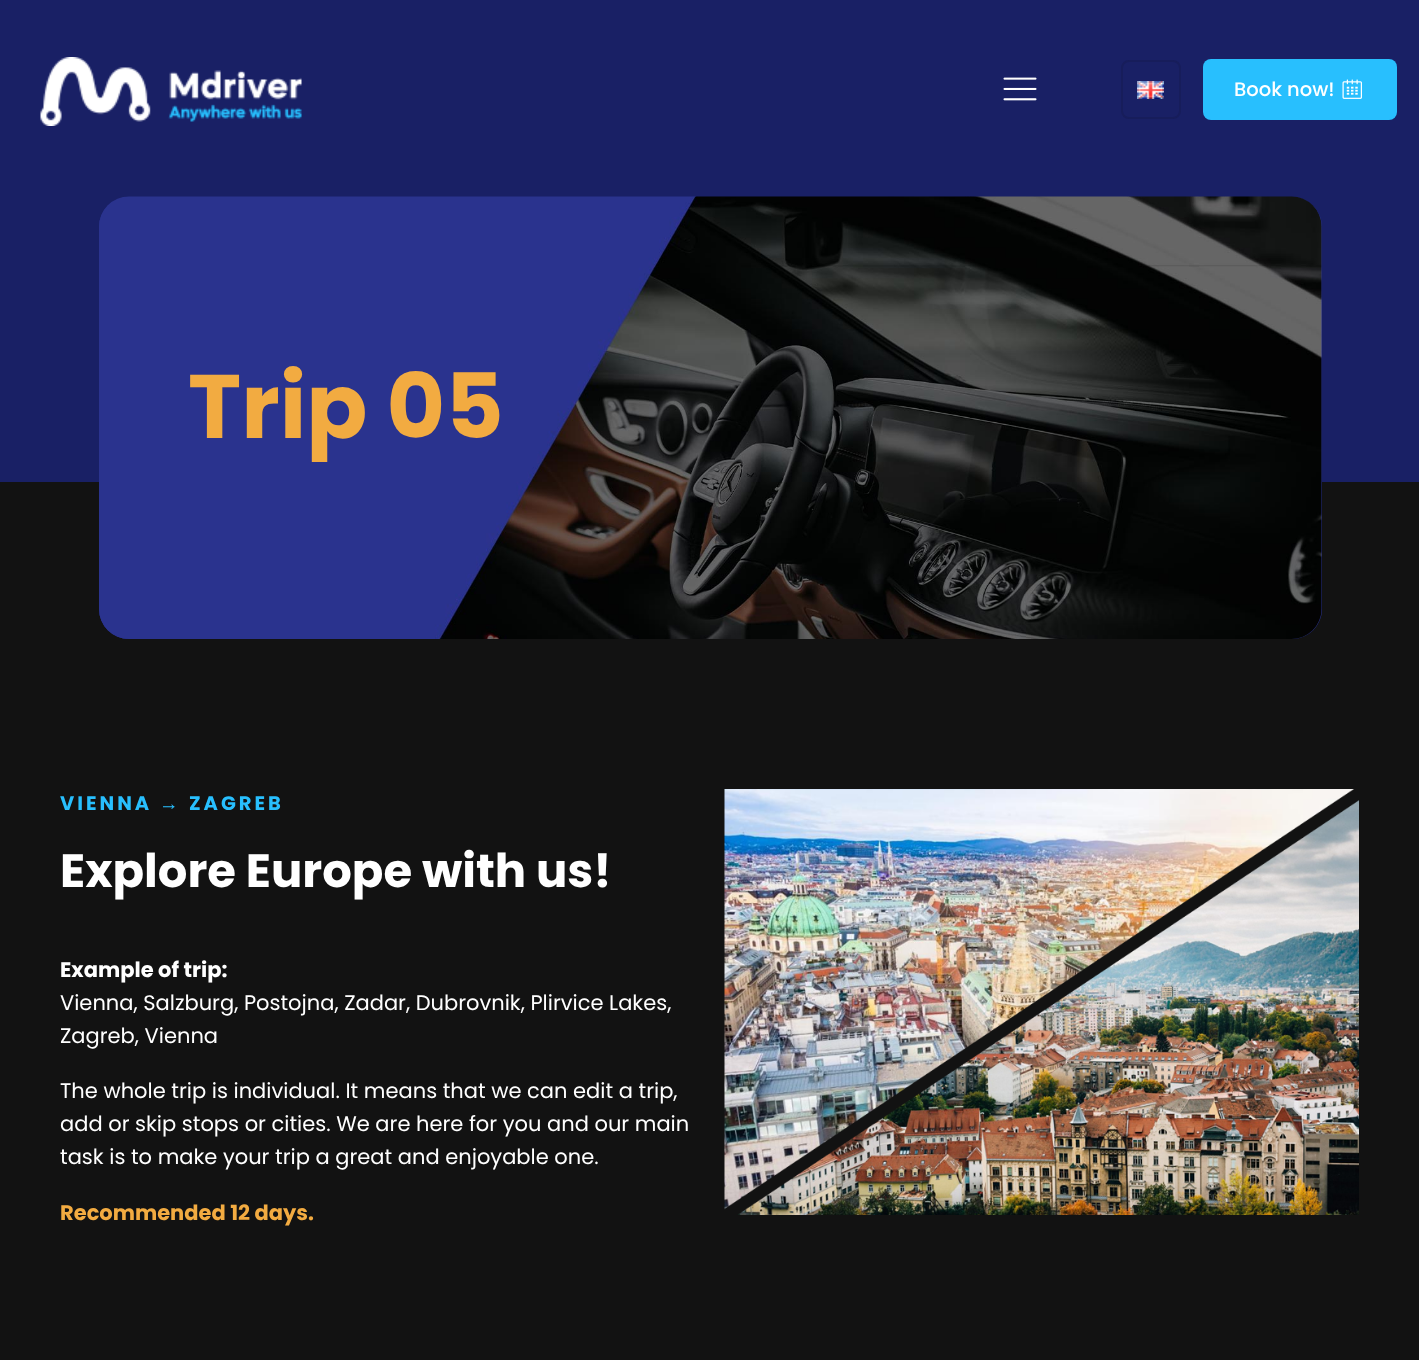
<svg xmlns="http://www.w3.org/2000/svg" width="1419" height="1360">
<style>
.a{font:500 19.5px Poppins;fill:#fff}
.b{font:bold 90px Poppins;fill:#f2ab41}
.c{font:bold 19.5px Poppins;letter-spacing:3px;fill:#28bffe}
.d{font:bold 19.5px Liberation Sans;letter-spacing:3px;fill:#28bffe}
.e{font:bold 46.5px Poppins;fill:#fff}
.f{font:bold 21px Poppins;fill:#fff}
.g{font:21px Poppins;fill:#fff}
.h{font:bold 21px Poppins;fill:#f2ab41}
</style>
<rect width="100%" height="100%" fill="#192065"/>
<image href="1.png" x="40" y="57" width="262" height="69"/>
<image href="2.png" x="1003" y="77" width="34" height="24"/>
<rect fill="none" stroke="#171d5b" stroke-width="2" x="1122" y="61" width="58" height="57" rx="7"/>
<image href="3.png" x="1137" y="81" width="27" height="18"/>
<rect fill="#28bffe" x="1203" y="59" width="194" height="61" rx="8"/>
<image href="4.png" x="1342" y="79" width="20" height="20"/>
<path fill="#121212" d="M0 482h1419v878H0z"/>
<rect fill="#2a338e" x="99" y="197" width="1223" height="442" rx="30"/>
<image href="5.png" x="99" y="196" width="1223" height="443"/>
<image href="6.png" x="724" y="789" width="635" height="426"/>
<text class="a" x="1234" y="96">Book now!</text>
<text class="b" x="188" y="438">Trip 05</text>
<text class="c" x="60" y="810">VIENNA</text>
<text class="d" x="159" y="810">→</text>
<text class="c" x="189" y="810">ZAGREB</text>
<text class="e" x="60" y="887">Explore Europe with us!</text>
<text class="f" x="60" y="977">Example of trip:</text>
<text class="g" x="60" y="1010">Vienna, Salzburg, Postojna, Zadar, Dubrovnik, Plirvice Lakes,</text>
<text class="g" x="60" y="1043">Zagreb, Vienna</text>
<text class="g" x="60" y="1098">The whole trip is individual. It means that we can edit a trip,</text>
<text class="g" x="60" y="1131">add or skip stops or cities. We are here for you and our main</text>
<text class="g" x="60" y="1164">task is to make your trip a great and enjoyable one.</text>
<text class="h" x="60" y="1220">Recommended 12 days.</text>
</svg>
